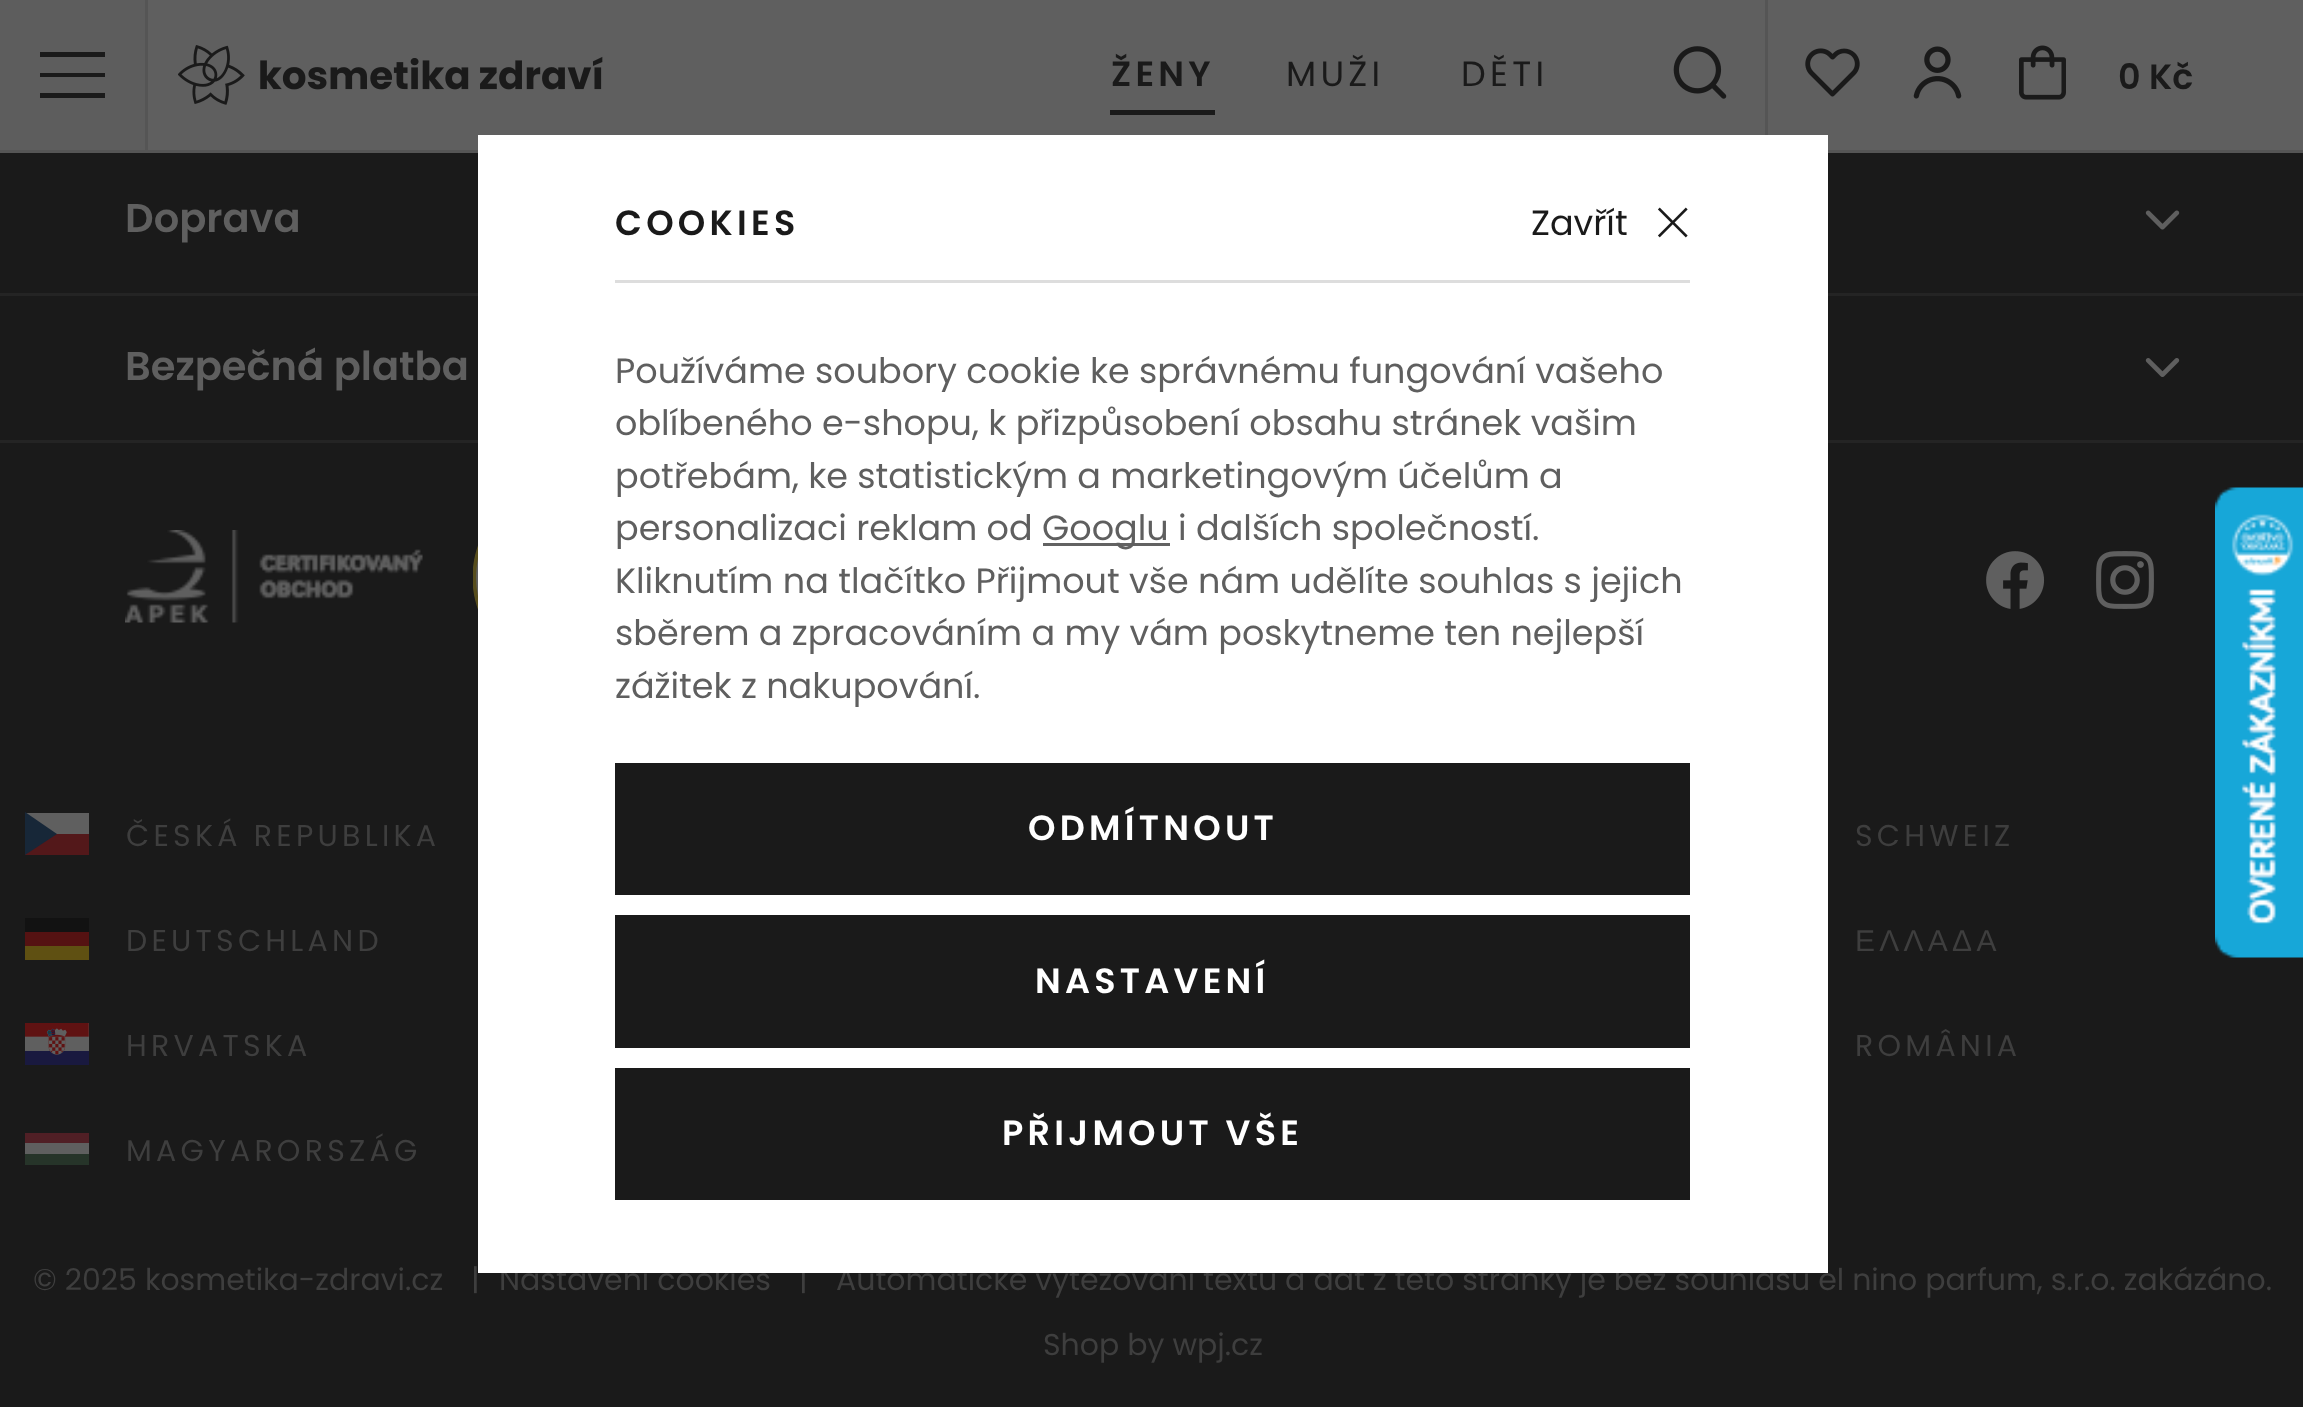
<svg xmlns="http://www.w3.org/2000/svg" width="2303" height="1407">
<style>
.a{font:600 35px Poppins;letter-spacing:4.25px;fill:#1a1a1a}
.b{font:35px Poppins;letter-spacing:4.25px;fill:#1a1a1a}
.c{font:600 35px Poppins;fill:#1a1a1a}
.d{font:600 40px Poppins;fill:#5f5f5f}
.e{font:30px Poppins;letter-spacing:4.25px;fill:#3e3e3e}
.f{font:30px Liberation Sans;letter-spacing:4.25px;fill:#3e3e3e}
.g{font:30px Poppins;fill:#3e3e3e}
.h{font:35px Poppins;fill:#1a1a1a}
.i{font:35px Poppins;fill:#5f5f5f}
.j{font:600 35px Poppins;letter-spacing:4.25px;fill:#fff}
</style>
<rect width="100%" height="100%" fill="#1a1a1a"/>
<path fill="#5f5f5f" d="M148 0h2155v150H148z"/>
<path fill="#555" d="M0 150h2303v3H0z"/>
<path fill="#5d5d5d" d="M0 0h145v150H0z"/>
<path fill="#555" d="M145 0h3v150H145z"/>
<path fill="#1a1a1a" d="M40 52h65v5h-65zm0 21h65v4h-65zm0 20h65v5h-65z"/>
<image href="1.png" x="178" y="45" width="425" height="60"/>
<path fill="#1a1a1a" d="M1110 110h105v5H1110z"/>
<image href="2.png" x="1673" y="46" width="54" height="53"/>
<path fill="#555" d="M1765 0h3v135H1765z"/>
<image href="3.png" x="1805" y="48" width="55" height="49"/>
<image href="4.png" x="1913" y="46" width="49" height="53"/>
<image href="5.png" x="2019" y="45" width="47" height="55"/>
<image href="6.png" x="2145" y="210" width="35" height="20"/>
<path fill="#242424" d="M0 293h2303v3H0z"/>
<image href="7.png" x="2145" y="358" width="35" height="19"/>
<path fill="#242424" d="M0 440h2303v3H0z"/>
<image href="8.png" x="125" y="530" width="298" height="93"/>
<image href="9.png" x="473" y="545" width="5" height="65"/>
<image href="10.png" x="1986" y="551" width="59" height="58"/>
<image href="11.png" x="2096" y="551" width="58" height="58"/>
<path fill="#53181a" d="M25 834h64v21H25z"/>
<path fill="#5f5f5f" d="M26 813h63v21H26z"/>
<path fill="#172738" d="M57 834l-32-22v43z"/>
<path fill="#121212" d="M25 918h64v14H25z"/>
<path fill="#551212" d="M25 932h64v14H25z"/>
<path fill="#5f5012" d="M25 946h64v14H25z"/>
<image href="12.png" x="25" y="1023" width="64" height="42"/>
<path fill="#263429" d="M25 1154h64v11H25z"/>
<path fill="#5f5f5f" d="M25 1143h64v11H25z"/>
<path fill="#501f25" d="M25 1133h64v10H25z"/>
<image href="14.png" x="2215" y="487" width="88" height="471"/>
<text class="a" x="1111" y="86">ŽENY</text>
<text class="b" x="1286" y="86">MUŽI</text>
<text class="b" x="1461" y="86">DĚTI</text>
<text class="c" x="2118" y="89">0 Kč</text>
<text class="d" x="125" y="232">Doprava</text>
<text class="d" x="125" y="380">Bezpečná platba</text>
<text class="e" x="126" y="846">ČESKÁ REPUBLIKA</text>
<text class="e" x="1855" y="846">SCHWEIZ</text>
<text class="e" x="126" y="951">DEUTSCHLAND</text>
<text class="f" x="1855" y="951">ΕΛΛΑΔΑ</text>
<text class="e" x="126" y="1056">HRVATSKA</text>
<text class="e" x="1855" y="1056">ROMÂNIA</text>
<text class="e" x="126" y="1161">MAGYARORSZÁG</text>
<text class="g" x="33" y="1290">© 2025 kosmetika-zdravi.cz</text>
<text class="g" x="471" y="1290">|</text>
<text class="g" x="499" y="1290">Nastavení cookies</text>
<text class="g" x="799" y="1290">|</text>
<text class="g" x="836" y="1290">Automatické vytěžování textů a dat z této stránky je bez souhlasu el nino parfum, s.r.o. zakázáno.</text>
<text class="g" x="1043" y="1355">Shop by wpj.cz</text>
<path fill="#fff" d="M478 135h1350v1138H478z"/>
<path fill="#ddd" d="M615 280h1075v3H615z"/>
<text class="a" x="615" y="235">COOKIES</text>
<text class="h" x="1531" y="235">Zavřít</text>
<image href="13.png" x="1658" y="207" width="30" height="31"/>
<text class="i" x="615" y="383">Používáme soubory cookie ke správnému fungování vašeho</text>
<text class="i" x="615" y="435">oblíbeného e-shopu, k přizpůsobení obsahu stránek vašim</text>
<text class="i" x="615" y="488">potřebám, ke statistickým a marketingovým účelům a</text>
<text class="i" x="615" y="540">personalizaci reklam od</text>
<path fill="#626262" d="M1043 543h127v3H1043z"/>
<text class="i" x="1042" y="540">Googlu i dalších společností.</text>
<text class="i" x="615" y="593">Kliknutím na tlačítko Přijmout vše nám udělíte souhlas s jejich</text>
<text class="i" x="615" y="645">sběrem a zpracováním a my vám poskytneme ten nejlepší</text>
<text class="i" x="615" y="698">zážitek z nakupování.</text>
<path fill="#1a1a1a" d="M615 763h1075v132H615z"/>
<text class="j" x="1028" y="840">ODMÍTNOUT</text>
<path fill="#1a1a1a" d="M615 915h1075v133H615z"/>
<text class="j" x="1035" y="993">NASTAVENÍ</text>
<path fill="#1a1a1a" d="M615 1068h1075v132H615z"/>
<text class="j" x="1002" y="1145">PŘIJMOUT VŠE</text>
</svg>
